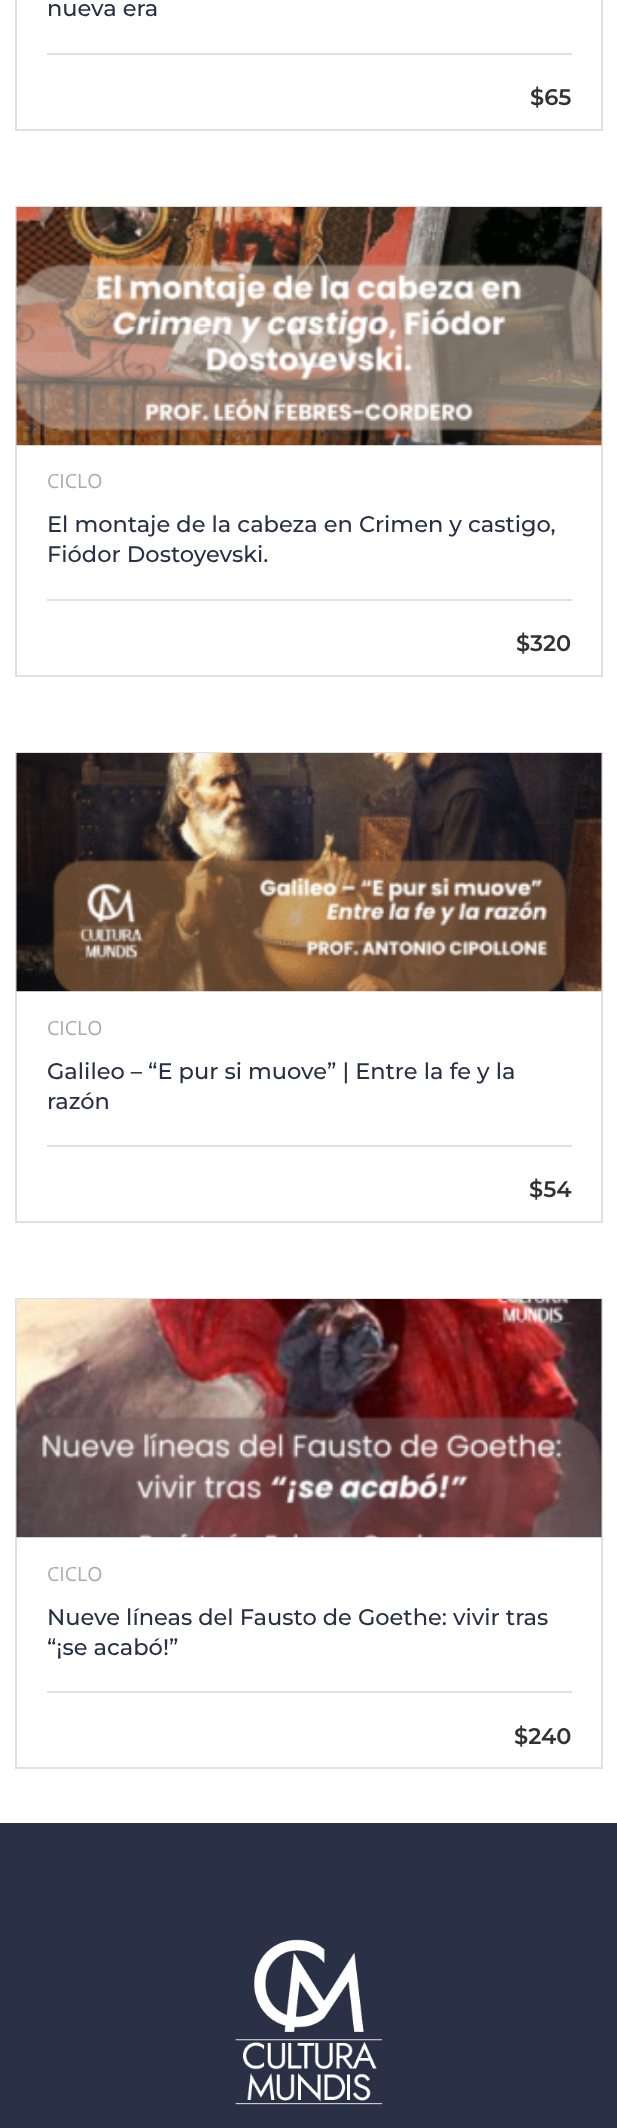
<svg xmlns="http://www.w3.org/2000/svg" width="617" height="2128">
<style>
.a{font:500 22.5px Montserrat;fill:#273044}
.b{font:600 22.5px Montserrat;fill:#333}
.c{font:19.5px Open Sans;fill:#aaa}
</style>
<rect width="100%" height="100%" fill="#fff"/>
<path fill="none" stroke="#e0e0e0" stroke-width="2" d="M16 -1h586v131H16z"/>
<path fill="#e0e0e0" d="M47 53h525v2H47z"/>
<path fill="none" stroke="#e0e0e0" stroke-width="2" d="M16 207h586v469H16z"/>
<image href="1.png" x="16" y="207" width="586" height="239"/>
<path fill="#e0e0e0" d="M47 599h525v2H47z"/>
<path fill="none" stroke="#e0e0e0" stroke-width="2" d="M16 753h586v469H16z"/>
<image href="2.png" x="16" y="753" width="586" height="239"/>
<path fill="#e0e0e0" d="M47 1145h525v2H47z"/>
<path fill="none" stroke="#e0e0e0" stroke-width="2" d="M16 1299h586v469H16z"/>
<image href="3.png" x="16" y="1299" width="586" height="239"/>
<path fill="#e0e0e0" d="M47 1691h525v2H47z"/>
<path fill="#2a3045" d="M0 1823h617v305H0z"/>
<image href="4.png" x="235" y="1939" width="148" height="166"/>
<text class="a" x="47" y="16">nueva era</text>
<text class="b" x="530" y="105">$65</text>
<text class="c" x="47" y="488">CICLO</text>
<text class="a" x="47" y="532">El montaje de la cabeza en Crimen y castigo,</text>
<text class="a" x="47" y="562">Fiódor Dostoyevski.</text>
<text class="b" x="516" y="651">$320</text>
<text class="c" x="47" y="1035">CICLO</text>
<text class="a" x="47" y="1079">Galileo – “E pur si muove” | Entre la fe y la</text>
<text class="a" x="47" y="1109">razón</text>
<text class="b" x="529" y="1197">$54</text>
<text class="c" x="47" y="1581">CICLO</text>
<text class="a" x="47" y="1625">Nueve líneas del Fausto de Goethe: vivir tras</text>
<text class="a" x="47" y="1655">“¡se acabó!”</text>
<text class="b" x="514" y="1744">$240</text>
</svg>
